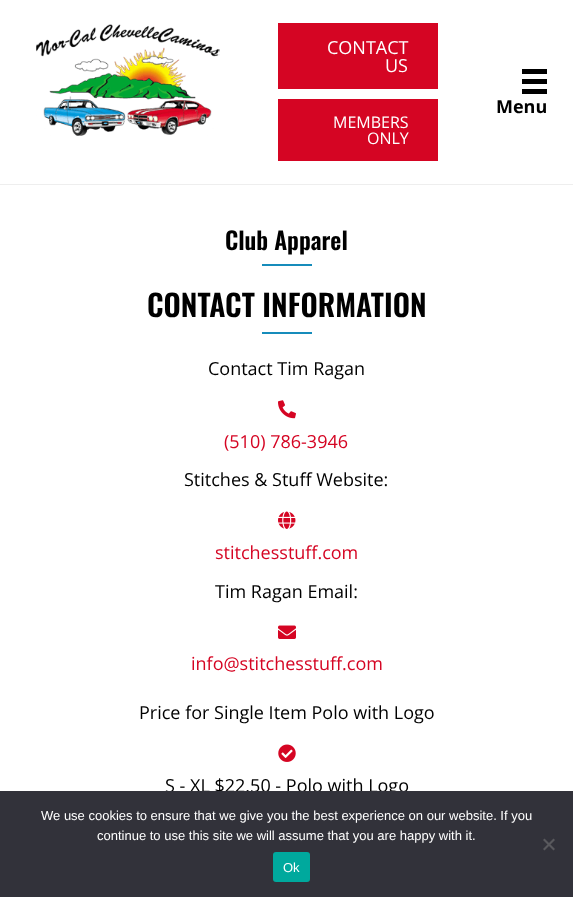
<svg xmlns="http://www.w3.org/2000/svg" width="573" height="897">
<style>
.a{font:18px Open Sans;fill:#fff}
.b{font:16px Open Sans;fill:#fff}
.c{font:bold 18px Open Sans;fill:#000}
.d{font:600 24px Oswald;fill:#000}
.e{font:600 30px Oswald;fill:#000}
.f{font:18px Open Sans;fill:#000}
.g{font:18px Open Sans;fill:#d50523}
.h{font:13px Liberation Sans;fill:#fff}
</style>
<rect width="100%" height="100%" fill="#fff"/>
<path fill="#eee" d="M0 184h573v1H0z"/>
<image href="1.png" x="36" y="24" width="184" height="112"/>
<path fill="#d50523" d="M278 23h160v66H278z"/>
<path fill="#d50523" d="M278 99h160v62H278z"/>
<path fill="#000" d="M522 69h25v5H522z"/>
<path fill="#000" d="M522 79h25v5H522z"/>
<path fill="#000" d="M522 89h25v5H522z"/>
<path fill="#168cbb" d="M262 264h50v2H262z"/>
<path fill="#168cbb" d="M262 332h50v2H262z"/>
<image href="2.png" x="278" y="400" width="18" height="19"/>
<image href="3.png" x="278" y="511" width="18" height="18"/>
<image href="4.png" x="278" y="625" width="18" height="14"/>
<image href="5.png" x="278" y="744" width="18" height="18"/>
<text class="a" x="327" y="54">CONTACT</text>
<text class="a" x="385" y="72">US</text>
<text class="b" x="333" y="128">MEMBERS</text>
<text class="b" x="367" y="144">ONLY</text>
<text class="c" x="496" y="113">Menu</text>
<text class="d" x="225" y="250">Club Apparel</text>
<text class="e" x="147" y="317">CONTACT INFORMATION</text>
<text class="f" x="208" y="375">Contact Tim Ragan</text>
<text class="g" x="224" y="448">(510) 786-3946</text>
<text class="f" x="184" y="486">Stitches &amp; Stuff Website:</text>
<text class="g" x="215" y="559">stitchesstuff.com</text>
<text class="f" x="215" y="598">Tim Ragan Email:</text>
<text class="g" x="191" y="670">info@stitchesstuff.com</text>
<text class="f" x="139" y="719">Price for Single Item Polo with Logo</text>
<text class="f" x="165" y="792">S - XL $22.50 - Polo with Logo</text>
<path fill="#32323a" d="M0 791h573v106H0z"/>
<text class="h" x="41" y="820">We use cookies to ensure that we give you the best experience on our website. If you</text>
<text class="h" x="97" y="840">continue to use this site we will assume that you are happy with it.</text>
<path fill="#59595d" d="M553.5 838.5l1.5 1.5l-10.5 10.5l-1.5-1.5z"/>
<path fill="#59595d" d="M543 840l1.5-1.5l10.5 10.5l-1.5 1.5z"/>
<rect fill="#00a99d" x="273" y="852" width="37" height="30" rx="3"/>
<text class="h" x="283" y="872">Ok</text>
</svg>
